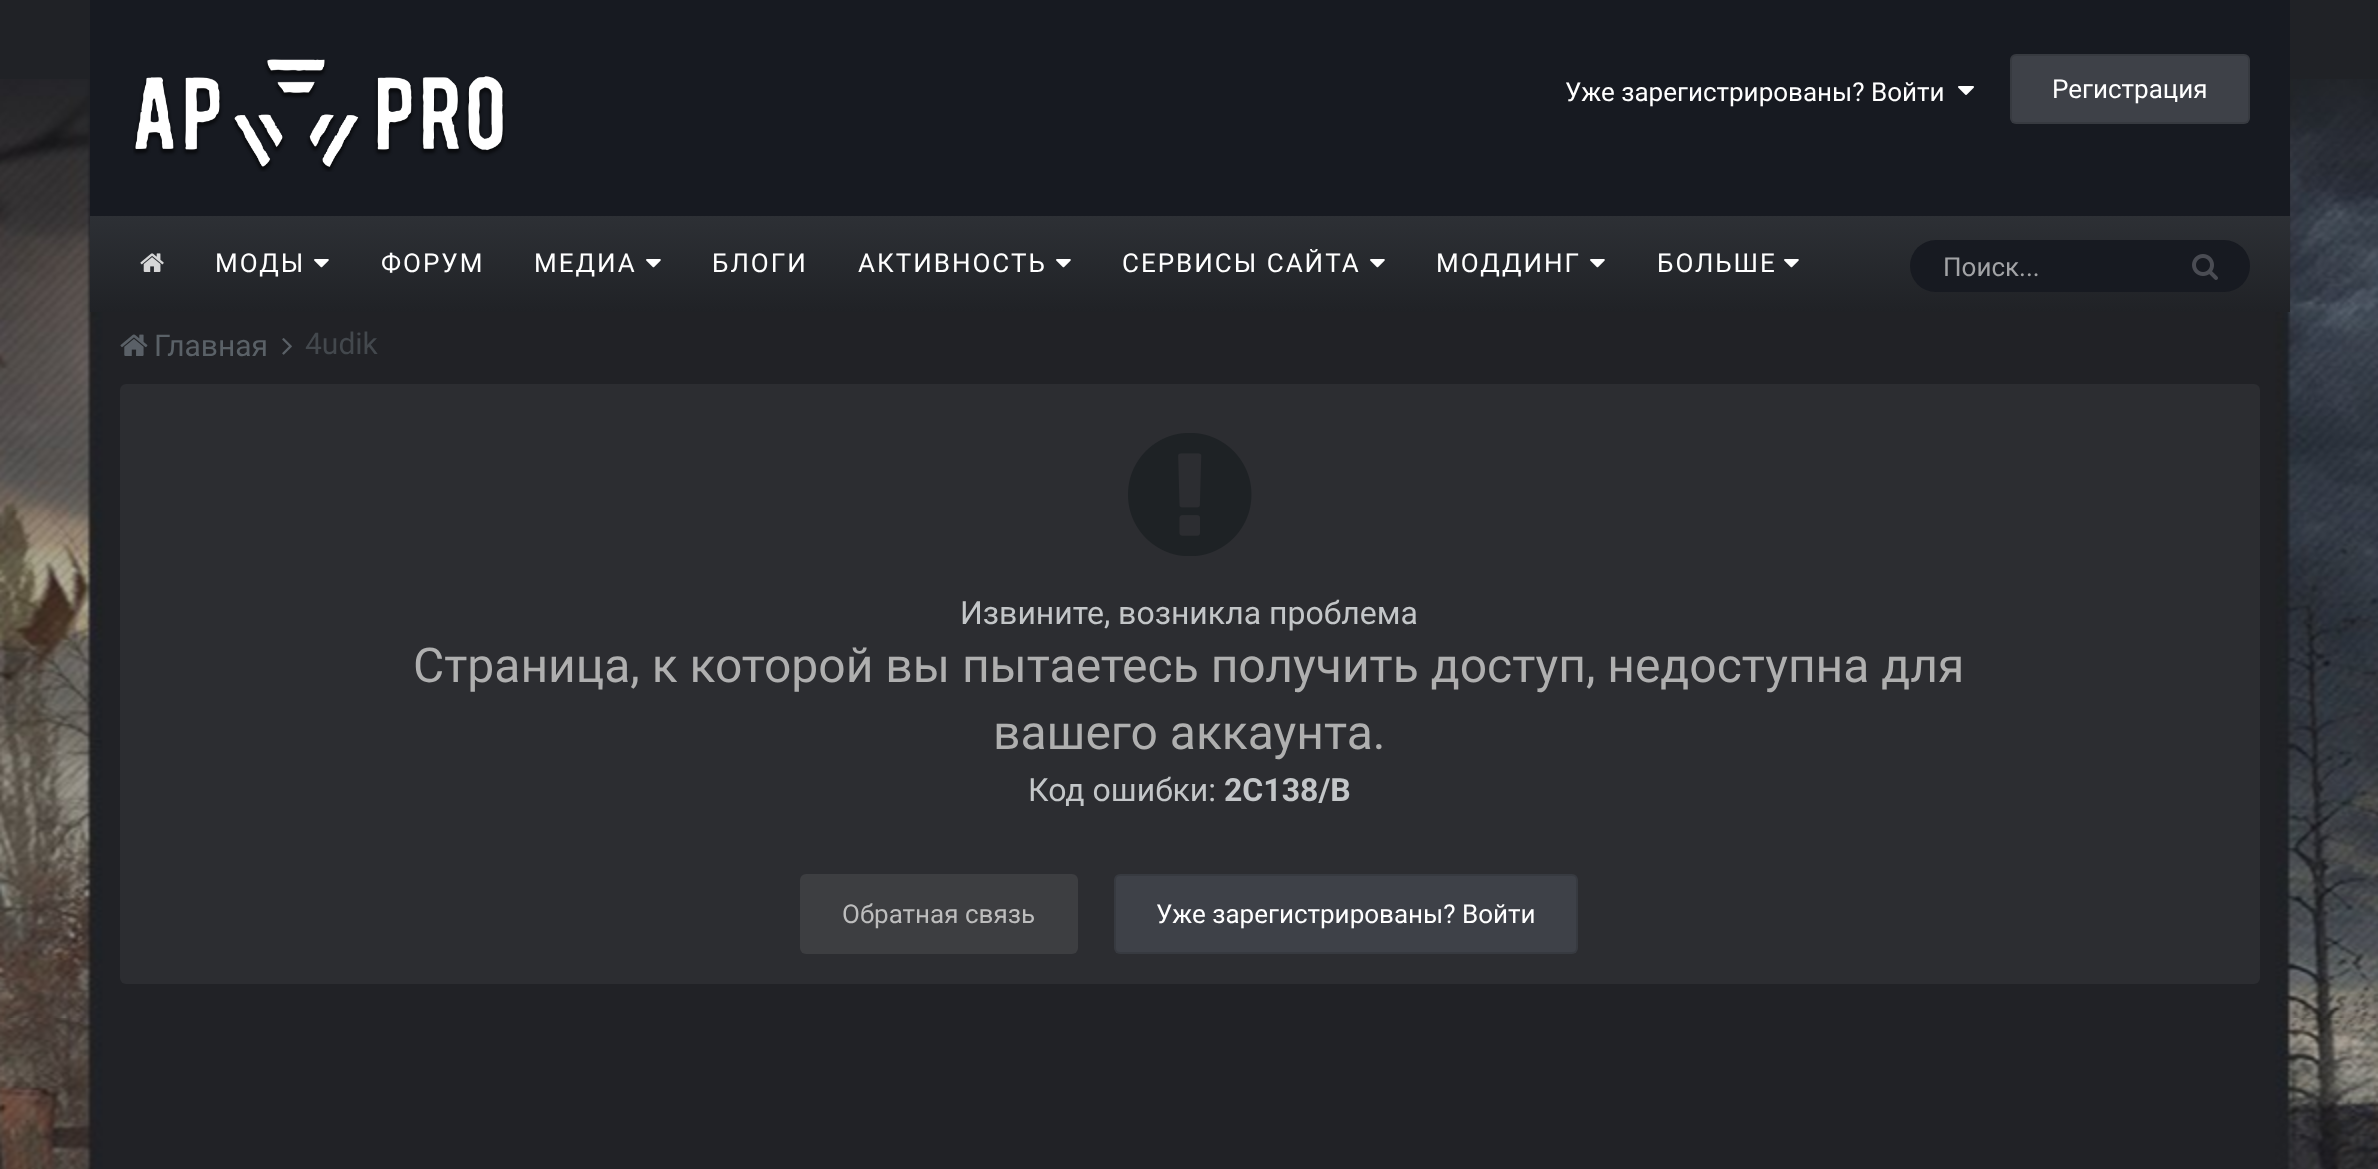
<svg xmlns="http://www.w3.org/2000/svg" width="2378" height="1169">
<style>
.a{font:26px Roboto;fill:#fff}
.b{font:26px Roboto;letter-spacing:2px;fill:#fff}
.c{font:26px Roboto;fill:#a2a3a6}
.d{font:30px Roboto;fill:#5a6167}
.e{font:30px Roboto;fill:#43484d}
.f{font:32px Roboto;fill:#c3c6c8}
.g{font:48px Roboto;fill:#afafaf}
.h{font:bold 32px Roboto;fill:#c3c6c8}
.i{font:26px Roboto;fill:#bdbdbd}
</style>
<defs>
<linearGradient id="g1" gradientUnits="userSpaceOnUse" x1="1190" y1="312" x2="1190" y2="216"><stop offset="0" stop-color="#202226"/><stop offset="1" stop-color="#2d3035"/></linearGradient>
</defs>
<rect width="100%" height="100%" fill="#202226"/>
<image href="1.png" x="0" y="79" width="2378" height="1090"/>
<path fill="#171a21" d="M90 0h2200v216H90z"/>
<image href="2.png" x="133" y="59" width="372" height="113"/>
<image href="3.png" x="1958" y="86" width="16" height="9"/>
<rect fill="#3e4148" x="2010" y="54" width="240" height="70" rx="6"/>
<rect fill="none" stroke="#0000001a" stroke-width="2" x="2011" y="55" width="238" height="68" rx="5"/>
<path fill="url(#g1)" d="M90 216h2200v96H90z"/>
<image href="4.png" x="140" y="253" width="24" height="19"/>
<image href="5.png" x="314" y="259" width="15" height="9"/>
<image href="5.png" x="646" y="259" width="15" height="9"/>
<image href="5.png" x="1056" y="259" width="15" height="9"/>
<image href="5.png" x="1370" y="259" width="15" height="9"/>
<image href="5.png" x="1590" y="259" width="15" height="9"/>
<image href="5.png" x="1784" y="259" width="15" height="9"/>
<rect fill="#171a21" x="1910" y="240" width="340" height="52" rx="26"/>
<image href="6.png" x="2192" y="254" width="26" height="26"/>
<image href="7.png" x="120" y="334" width="28" height="22"/>
<image href="8.png" x="282" y="338" width="10" height="17"/>
<rect fill="#2c2d31" x="120" y="384" width="2140" height="600" rx="6"/>
<image href="9.png" x="1128" y="433" width="124" height="123"/>
<rect fill="#3d3e41" x="800" y="874" width="278" height="80" rx="6"/>
<rect fill="#3e4148" x="1114" y="874" width="464" height="80" rx="6"/>
<rect fill="none" stroke="#0000001a" stroke-width="2" x="1115" y="875" width="462" height="78" rx="5"/>
<text class="a" x="1565" y="101">Уже зарегистрированы? Войти</text>
<text class="a" x="2052" y="98">Регистрация</text>
<text class="b" x="215" y="272">МОДЫ</text>
<text class="b" x="381" y="272">ФОРУМ</text>
<text class="b" x="534" y="272">МЕДИА</text>
<text class="b" x="712" y="272">БЛОГИ</text>
<text class="b" x="858" y="272">АКТИВНОСТЬ</text>
<text class="b" x="1122" y="272">СЕРВИСЫ САЙТА</text>
<text class="b" x="1436" y="272">МОДДИНГ</text>
<text class="b" x="1657" y="272">БОЛЬШЕ</text>
<text class="c" x="1943" y="276">Поиск...</text>
<text class="d" x="154" y="356">Главная</text>
<text class="e" x="305" y="354">4udik</text>
<text class="f" x="960" y="624">Извините, возникла проблема</text>
<text class="g" x="413" y="682">Страница, к которой вы пытаетесь получить доступ, недоступна для</text>
<text class="g" x="993" y="749">вашего аккаунта.</text>
<text class="f" x="1028" y="801">Код ошибки:</text>
<text class="h" x="1224" y="801">2C138/B</text>
<text class="i" x="842" y="923">Обратная связь</text>
<text class="a" x="1156" y="923">Уже зарегистрированы? Войти</text>
</svg>
